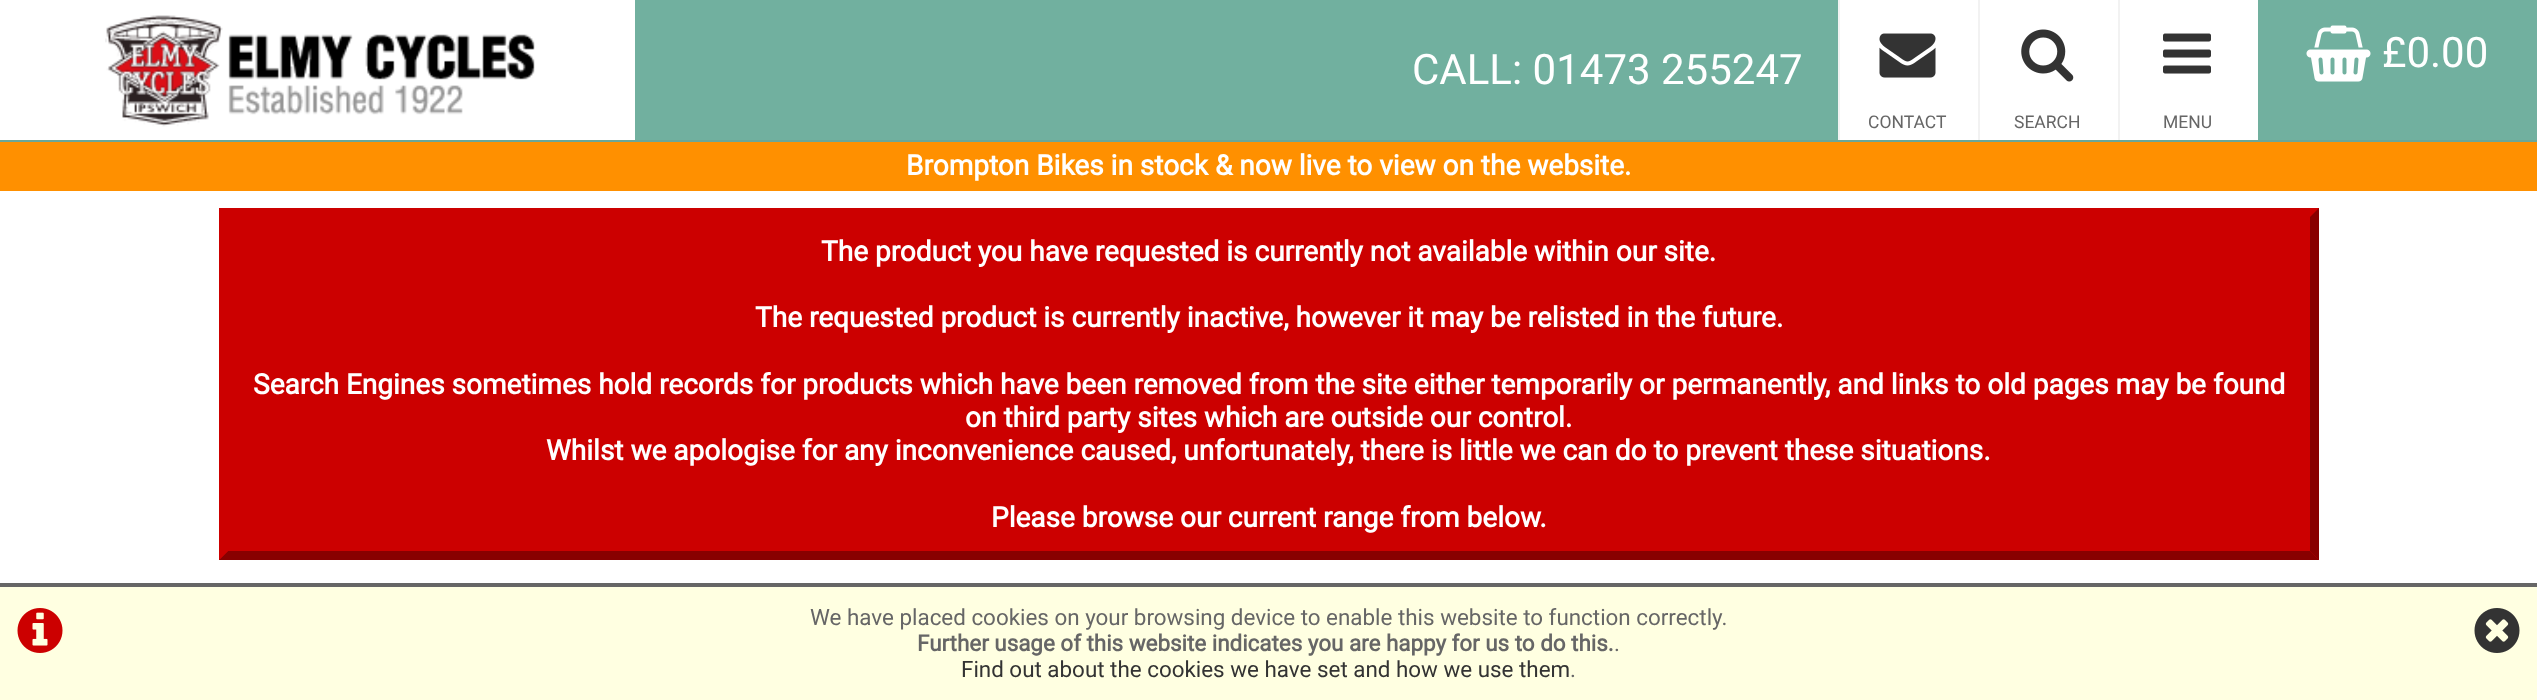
<svg xmlns="http://www.w3.org/2000/svg" width="2537" height="700">
<style>
.a{font:42px Roboto;fill:#fff}
.b{font:17.5px Roboto;fill:#666}
.c{font:bold 28px Roboto;fill:#fff}
.d{font:22.4px Roboto;fill:#666}
.e{font:bold 22.4px Roboto;fill:#666}
.f{font:22.4px Roboto;fill:#333}
</style>
<rect width="100%" height="100%" fill="#fff"/>
<path fill="#71b09f" d="M635 0h1902v140H635z"/>
<path fill="#6ba797" d="M0 140h2537v2H0z"/>
<image href="1.png" x="105" y="15" width="430" height="112"/>
<image href="2.png" x="2306" y="25" width="65" height="57"/>
<path fill="#fff" d="M1840 0h138v140H1840z"/>
<path fill="#f2f2f2" d="M1838 0h2v140H1838z"/>
<image href="3.png" x="1879" y="33" width="57" height="45"/>
<path fill="#fff" d="M1980 0h138v140H1980z"/>
<path fill="#f2f2f2" d="M1978 0h2v140H1978z"/>
<image href="4.png" x="2021" y="29" width="53" height="53"/>
<path fill="#fff" d="M2120 0h138v140H2120z"/>
<path fill="#f2f2f2" d="M2118 0h2v140H2118z"/>
<image href="5.png" x="2163" y="33" width="48" height="41"/>
<path fill="#ff9000" d="M0 142h2537v49H0z"/>
<path fill="#c00" d="M219 208h2100v352H219z"/>
<path fill="#800" d="M2319 208v352l-9-9v-334z"/>
<path fill="#800" d="M2319 560h-2100l9-9h2082z"/>
<path fill="#c00" d="M219 560v-352l9 9v334z"/>
<path fill="#ffffe1" d="M0 587h2537v113H0z"/>
<path fill="#666" d="M0 583h2537v4H0z"/>
<image href="6.png" x="17" y="608" width="46" height="45"/>
<image href="7.png" x="2474" y="608" width="46" height="45"/>
<text class="a" x="1412" y="84">CALL: 01473 255247</text>
<text class="a" x="2382" y="67">£0.00</text>
<text class="b" x="1868" y="128">CONTACT</text>
<text class="b" x="2014" y="128">SEARCH</text>
<text class="b" x="2163" y="128">MENU</text>
<text class="c" x="906" y="175">Brompton Bikes in stock &amp; now live to view on the website.</text>
<text class="c" x="821" y="261">The product you have requested is currently not available within our site.</text>
<text class="c" x="755" y="327">The requested product is currently inactive, however it may be relisted in the future.</text>
<text class="c" x="253" y="394">Search Engines sometimes hold records for products which have been removed from the site either temporarily or permanently, and links to old pages may be found</text>
<text class="c" x="965" y="427">on third party sites which are outside our control.</text>
<text class="c" x="546" y="460">Whilst we apologise for any inconvenience caused, unfortunately, there is little we can do to prevent these situations.</text>
<text class="c" x="991" y="527">Please browse our current range from below.</text>
<text class="d" x="810" y="625">We have placed cookies on your browsing device to enable this website to function correctly.</text>
<text class="e" x="917" y="651">Further usage of this website indicates you are happy for us to do this.</text>
<text class="d" x="1614" y="651">.</text>
<text class="f" x="961" y="677">Find out about the cookies we have set and how we use them</text>
<text class="d" x="1570" y="677">.</text>
</svg>
